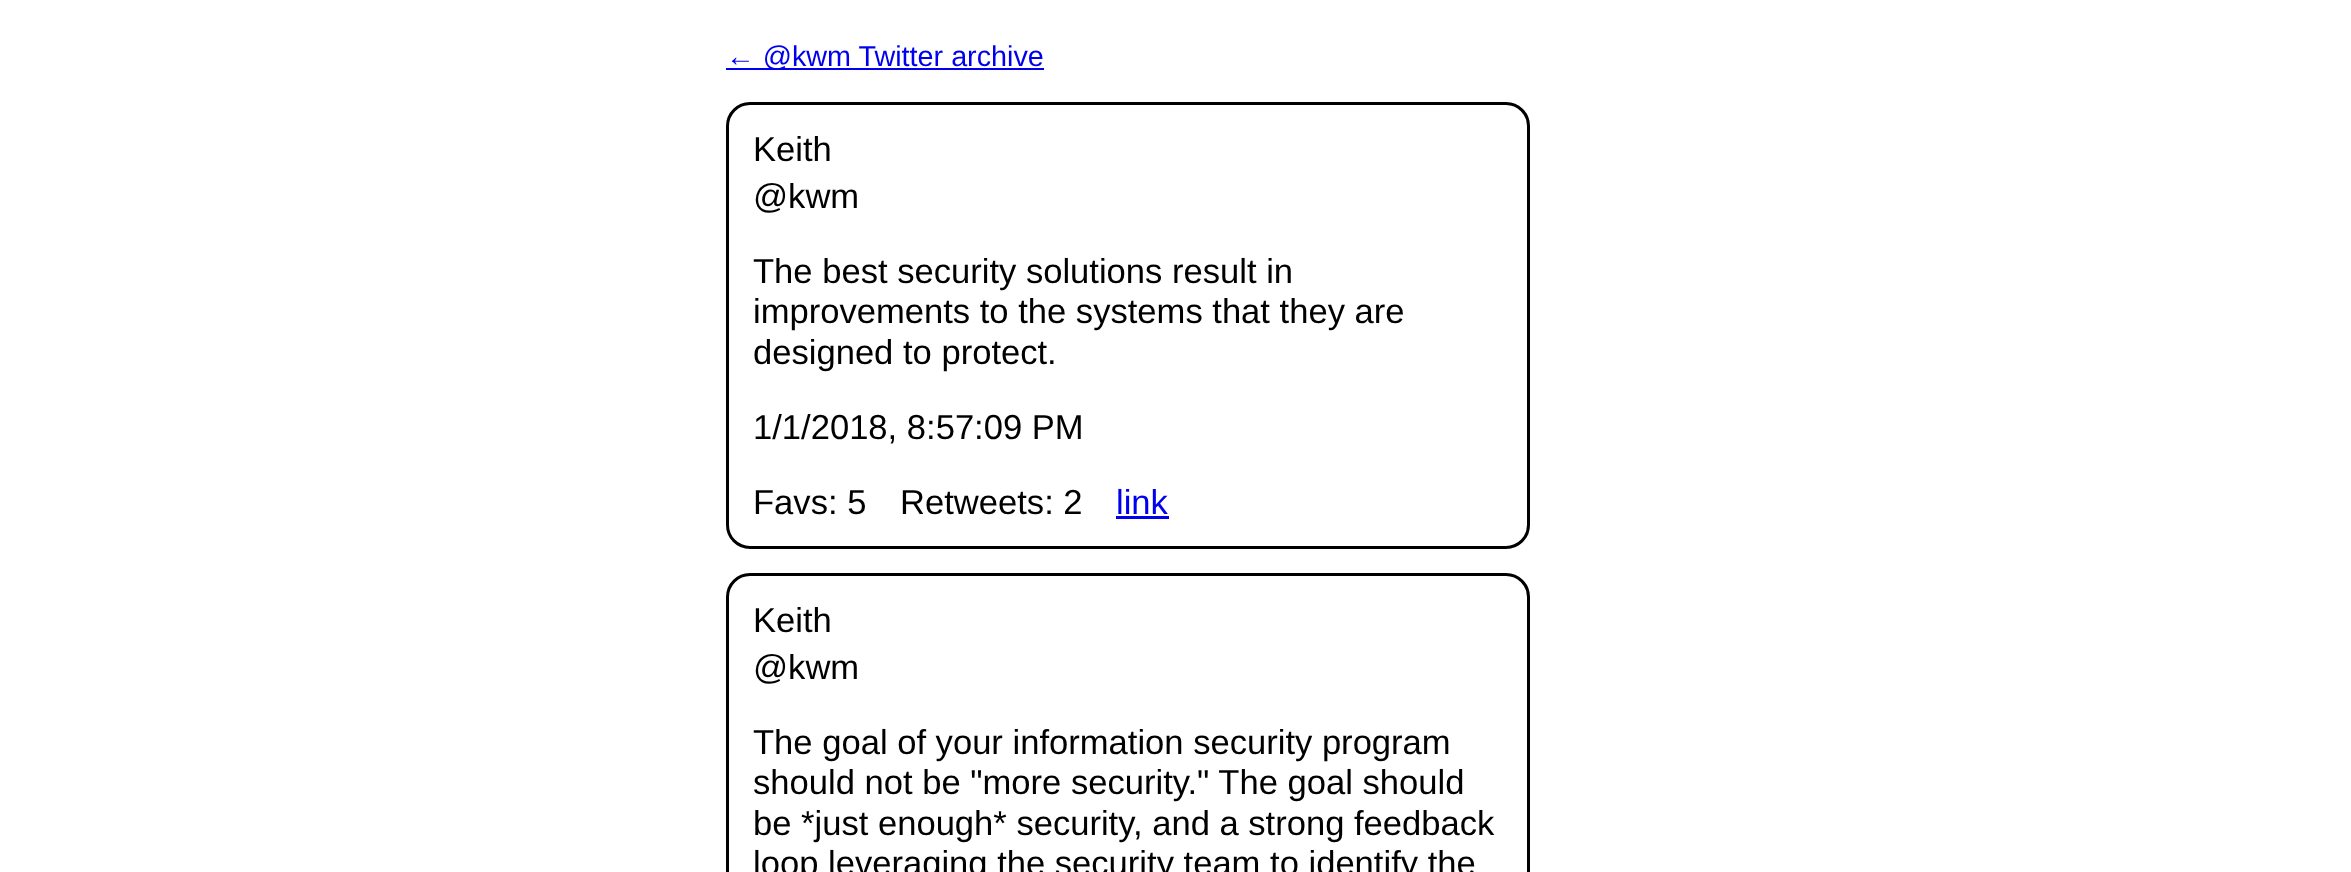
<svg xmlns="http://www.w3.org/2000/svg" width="2351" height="872">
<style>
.a{font:28.75px Liberation Sans;fill:#00e}
.b{font:34.6px Liberation Sans;fill:#000}
.c{font:34.6px Liberation Sans;fill:#00e}
</style>
<rect width="100%" height="100%" fill="#fff"/>
<path fill="#00e" d="M726 68h318v2H726z"/>
<rect fill="none" stroke="#000" stroke-width="3" x="727.5" y="103.5" width="801" height="444" rx="22.5"/>
<path fill="#00e" d="M1116 516h53v3H1116z"/>
<rect fill="none" stroke="#000" stroke-width="3" x="727.5" y="574.5" width="801" height="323" rx="22.5"/>
<text class="a" x="726" y="66">← @kwm Twitter archive</text>
<text class="b" x="753" y="161">Keith</text>
<text class="b" x="753" y="208">@kwm</text>
<text class="b" x="753" y="283">The best security solutions result in</text>
<text class="b" x="753" y="323">improvements to the systems that they are</text>
<text class="b" x="753" y="364">designed to protect.</text>
<text class="b" x="753" y="439">1/1/2018, 8:57:09 PM</text>
<text class="b" x="753" y="514">Favs: 5</text>
<text class="b" x="900" y="514">Retweets: 2</text>
<text class="c" x="1116" y="514">link</text>
<text class="b" x="753" y="632">Keith</text>
<text class="b" x="753" y="679">@kwm</text>
<text class="b" x="753" y="754">The goal of your information security program</text>
<text class="b" x="753" y="794">should not be "more security." The goal should</text>
<text class="b" x="753" y="835">be *just enough* security, and a strong feedback</text>
<text class="b" x="753" y="875">loop leveraging the security team to identify the</text>
</svg>
